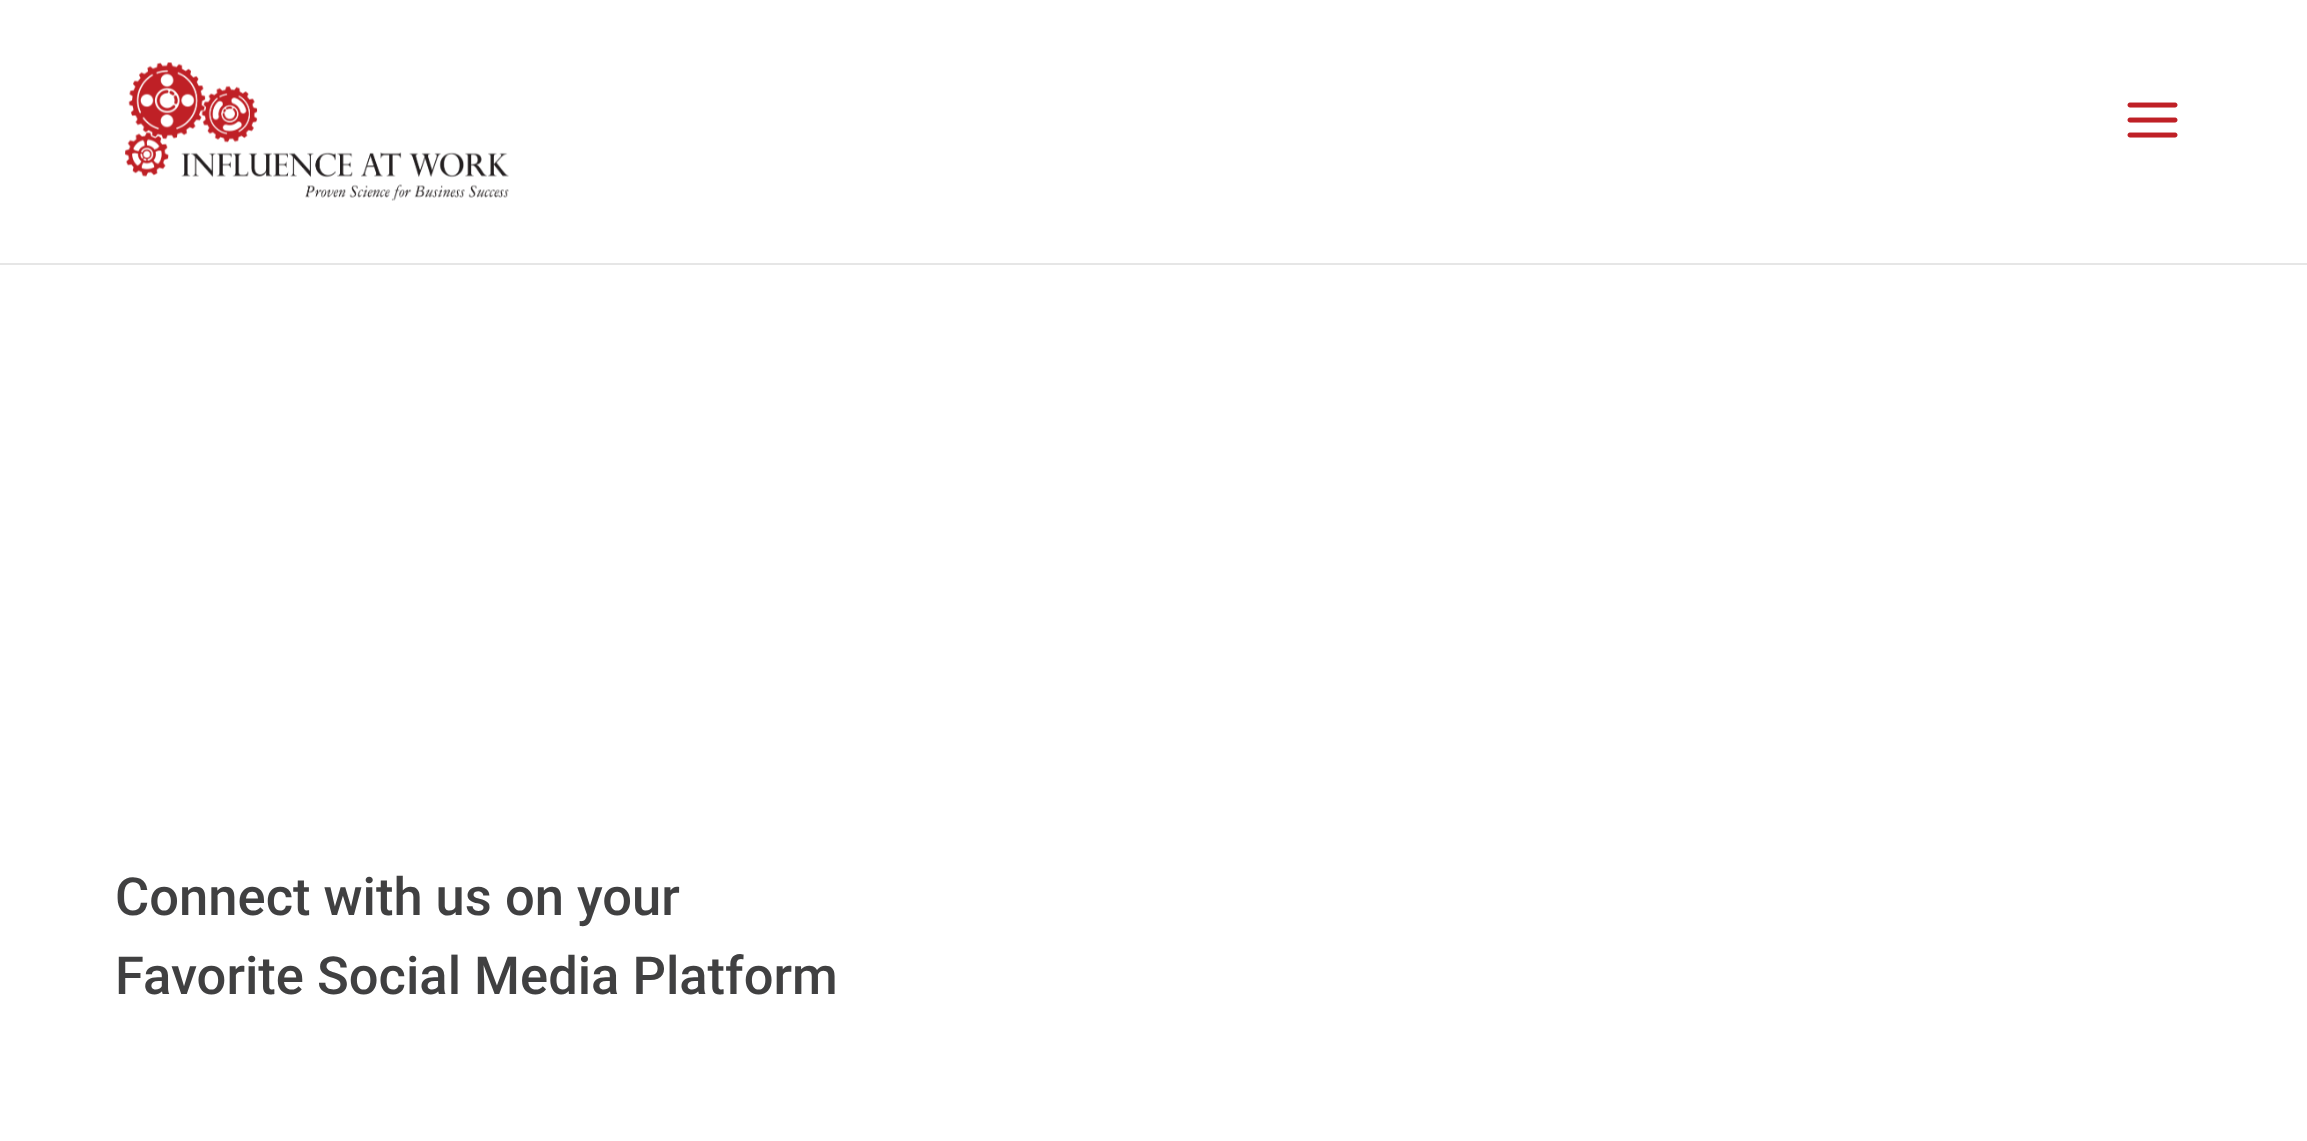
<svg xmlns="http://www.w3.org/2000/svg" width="2307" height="1141">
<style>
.a{font:500 52.5px Roboto;fill:#404041}
</style>
<rect width="100%" height="100%" fill="#fff"/>
<path fill="#e6e6e6" d="M0 262v3h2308v-262v259z"/>
<path fill="#fff" d="M0 262h2307v1H0z"/>
<image href="1.png" x="125" y="62" width="384" height="139"/>
<image href="2.png" x="2127" y="102" width="51" height="36"/>
<text class="a" x="115" y="915">Connect with us on your</text>
<text class="a" x="115" y="994">Favorite Social Media Platform</text>
</svg>
